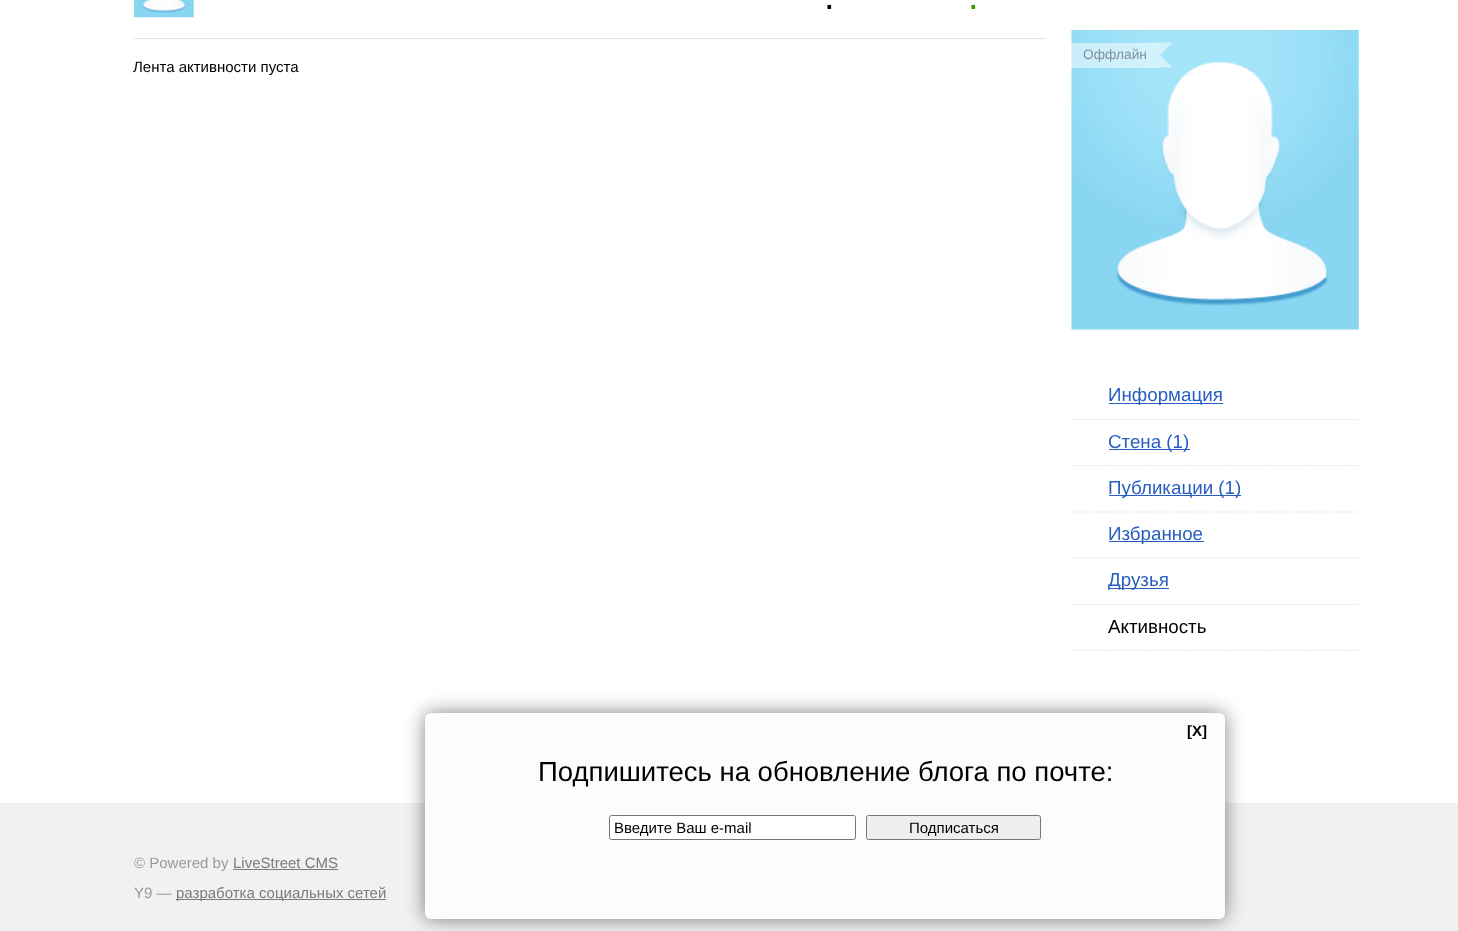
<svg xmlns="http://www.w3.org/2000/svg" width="1458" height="931">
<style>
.a{font:38px Liberation Sans;fill:#000}
.b{font:38px Liberation Sans;fill:#390}
.c{font:15px Liberation Sans;fill:#000}
.d{font:13.75px Liberation Sans;fill:#819197}
.e{font:18.75px Liberation Sans;fill:#275ec2}
.f{font:18.75px Liberation Sans;fill:#000}
.g{font:bold 15px Liberation Sans;fill:#000}
.h{font:27.5px Liberation Sans;fill:#000}
.i{font:15px Liberation Sans;fill:#9a9a9a}
.j{font:15px Liberation Sans;fill:#7b7b7b}
</style>
<defs>
<clipPath id="clip1"><path d="M1071 374h288v277H1071z"/></clipPath>
</defs>
<rect width="100%" height="100%" fill="#fff"/>
<path fill="#e4e4e4" d="M134 38h912v1H134z"/>
<image href="1.png" x="133" y="0" width="61" height="18"/>
<image href="2.png" x="1071" y="29" width="288" height="301"/>
<path fill="#ffffff80" d="M1071 43h77v25H1071z"/>
<path fill="#d2f2fc" d="M1147.5 42.5h25l-12.5 12.5zm25 25h-25l12.5-12.5z"/>
<path fill="#d2f2fc" d="M1148 43h12v25H1148z"/>
<path fill="none" stroke="#dce1e6" stroke-width="1.2" stroke-dasharray="1.25 1.25" d="M1071 419.5h288"/>
<path fill="#275ec2" d="M1109 403h114v1H1109z"/>
<path fill="none" stroke="#dce1e6" stroke-width="1.2" stroke-dasharray="1.25 1.25" d="M1071 465.5h288"/>
<path fill="#275ec2" d="M1109 449h81v1H1109z"/>
<path fill="none" stroke="#dce1e6" stroke-width="1.2" stroke-dasharray="1.25 1.25" d="M1071 512h288"/>
<path fill="#275ec2" d="M1109 495h132v1H1109z"/>
<path fill="none" stroke="#dce1e6" stroke-width="1.2" stroke-dasharray="1.25 1.25" d="M1071 558h288"/>
<path fill="#275ec2" d="M1109 541h95v1H1109z"/>
<path fill="none" stroke="#dce1e6" stroke-width="1.2" stroke-dasharray="1.25 1.25" d="M1071 604.5h288"/>
<path fill="#275ec2" d="M1109 588h60v1H1109z"/>
<g clip-path="url(#clip1)">
<path fill="none" stroke="#dce1e6" stroke-width="1.2" stroke-dasharray="1.25 1.25" d="M1071 650.5h288"/>
</g>
<path fill="#f1f1f1" d="M0 803h1458v128H0z"/>
<rect fill="#00000080" filter="blur(9.5px)" x="425" y="713" width="800" height="206" rx="6"/>
<rect fill="#fbfcfc" x="425" y="713" width="800" height="206" rx="6"/>
<rect fill="#fff" stroke="#767676" x="609.5" y="815.5" width="246" height="24" rx="2"/>
<rect fill="#efefef" stroke="#767676" x="866.5" y="815.5" width="174" height="24" rx="2"/>
<path fill="#7b7b7b" d="M233 869h105v1H233z"/>
<path fill="#7b7b7b" d="M176 899h210v1H176z"/>
<text class="a" x="824" y="9">.</text>
<text class="b" x="968" y="9">.</text>
<text class="c" x="133" y="72">Лента активности пуста</text>
<text class="d" x="1083" y="59">Оффлайн</text>
<text class="e" x="1108" y="401">Информация</text>
<text class="e" x="1108" y="448">Стена (1)</text>
<text class="e" x="1108" y="494">Публикации (1)</text>
<text class="e" x="1108" y="540">Избранное</text>
<text class="e" x="1108" y="586">Друзья</text>
<text class="f" x="1108" y="633">Активность</text>
<text class="g" x="1187" y="736">[X]</text>
<text class="h" x="538" y="781">Подпишитесь на обновление блога по почте:</text>
<text class="c" x="614" y="833">Введите Ваш e-mail</text>
<text class="c" x="909" y="833">Подписаться</text>
<text class="i" x="134" y="868">© Powered by</text>
<text class="j" x="233" y="868">LiveStreet CMS</text>
<text class="i" x="134" y="898">Y9 —</text>
<text class="j" x="176" y="898">разработка социальных сетей</text>
</svg>
